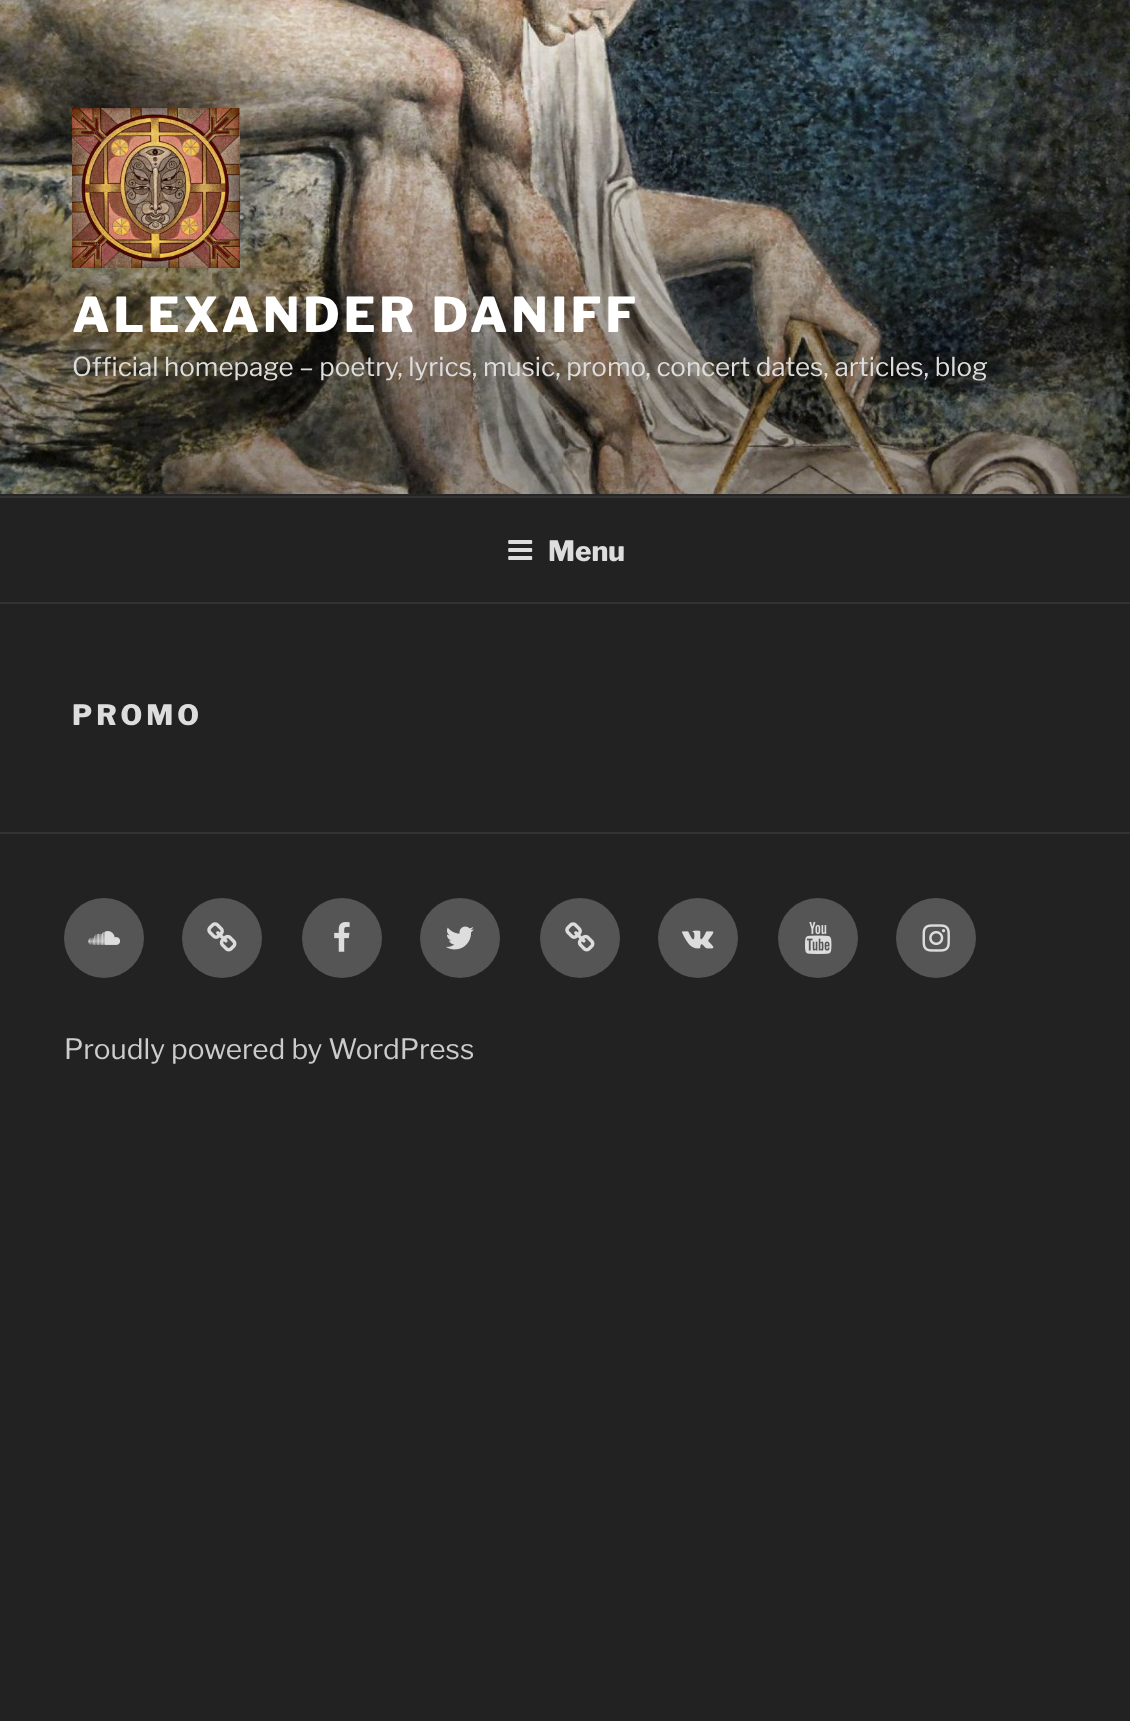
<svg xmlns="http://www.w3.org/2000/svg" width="1130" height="1721">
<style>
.a{font:800 48px Libre Franklin;letter-spacing:3.8px;fill:#fff}
.b{font:26px Libre Franklin;fill:#ddd}
.c{font:800 28px Libre Franklin;fill:#ddd}
.d{font:800 28px Libre Franklin;letter-spacing:4px;fill:#ddd}
.e{font:28px Libre Franklin;fill:#ccc}
</style>
<rect width="100%" height="100%" fill="#222"/>
<path fill="#262626" d="M0 494h1130v2H0z"/>
<image href="1.png" x="0" y="0" width="1130" height="494"/>
<image href="2.png" x="72" y="108" width="168" height="160"/>
<path fill="#333" d="M0 496h1130v2H0z"/>
<path fill="#333" d="M0 602h1130v2H0z"/>
<image href="3.png" x="508" y="540" width="25" height="20"/>
<path fill="#333" d="M0 832h1130v2H0z"/>
<circle fill="#555" cx="104" cy="938" r="40"/>
<image href="4.png" x="88" y="931" width="32" height="14"/>
<circle fill="#555" cx="222" cy="938" r="40"/>
<image href="5.png" x="207" y="922" width="30" height="30"/>
<circle fill="#555" cx="342" cy="938" r="40"/>
<image href="6.png" x="334" y="922" width="16" height="30"/>
<circle fill="#555" cx="460" cy="938" r="40"/>
<image href="7.png" x="446" y="926" width="28" height="24"/>
<circle fill="#555" cx="580" cy="938" r="40"/>
<image href="5.png" x="565" y="922" width="30" height="30"/>
<circle fill="#555" cx="698" cy="938" r="40"/>
<image href="8.png" x="682" y="930" width="32" height="19"/>
<circle fill="#555" cx="818" cy="938" r="40"/>
<image href="9.png" x="805" y="922" width="27" height="32"/>
<circle fill="#555" cx="936" cy="938" r="40"/>
<image href="10.png" x="922" y="924" width="28" height="28"/>
<text class="a" x="72" y="332">ALEXANDER DANIFF</text>
<text class="b" x="72" y="376">Official homepage – poetry, lyrics, music, promo, concert dates, articles, blog</text>
<text class="c" x="548" y="561">Menu</text>
<text class="d" x="72" y="725">PROMO</text>
<text class="e" x="64" y="1059">Proudly powered by WordPress</text>
</svg>
